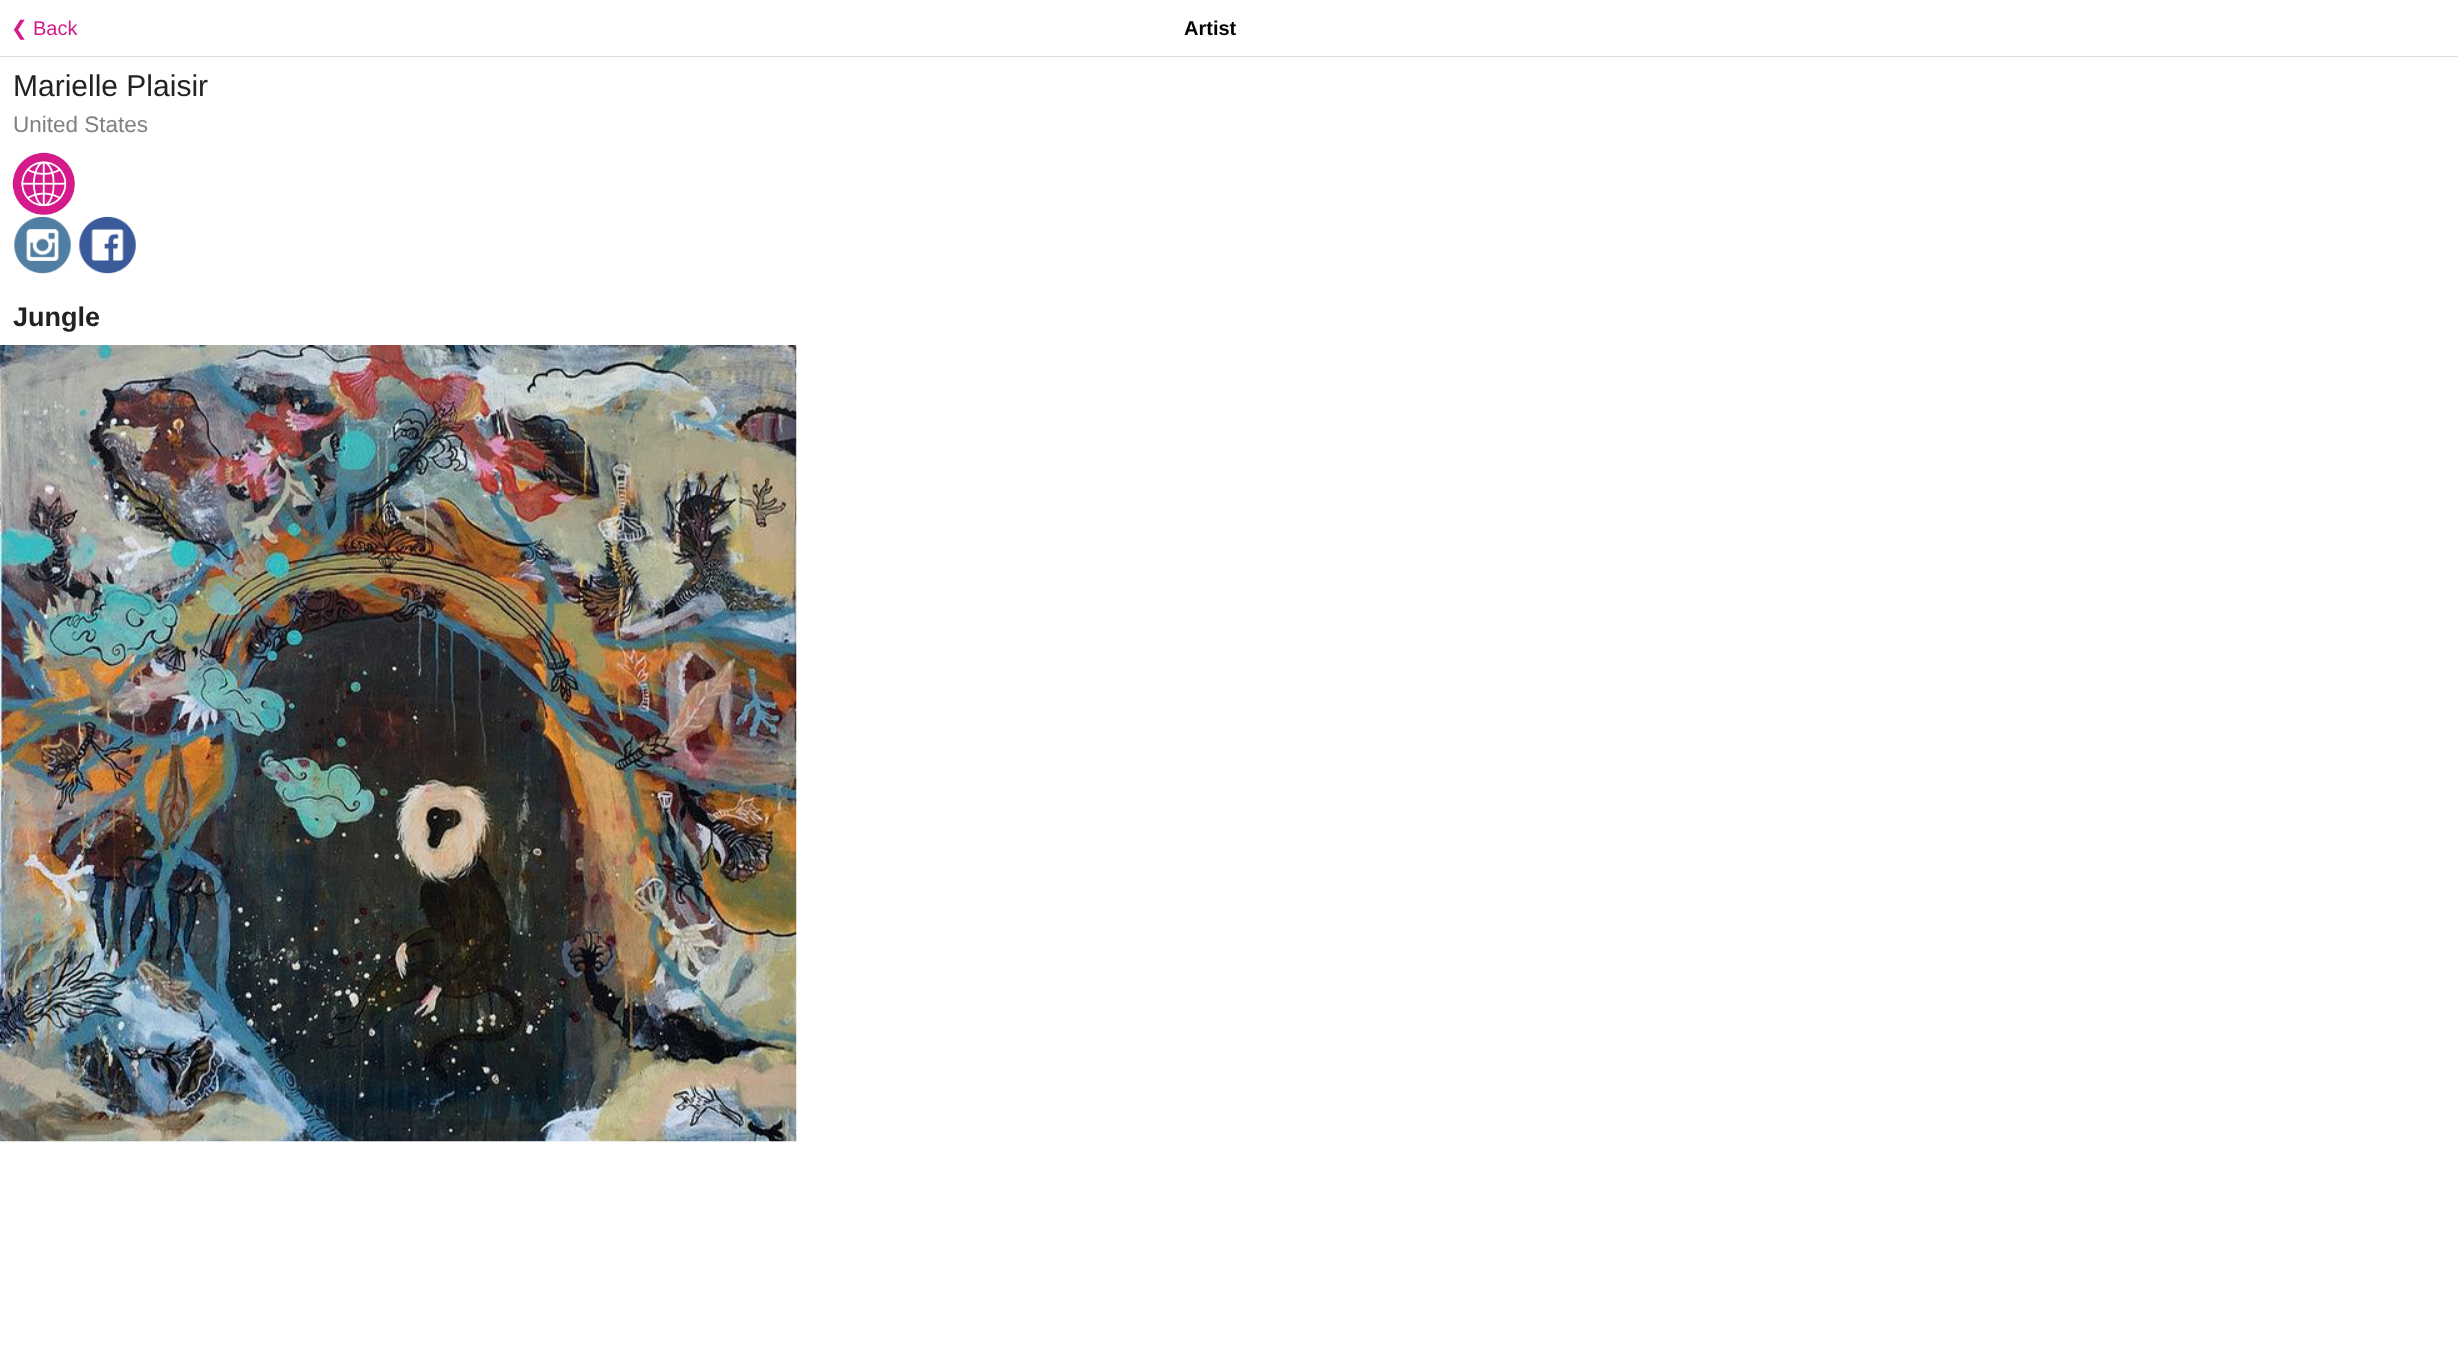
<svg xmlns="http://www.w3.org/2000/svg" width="2458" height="1361">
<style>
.a{font:20px DejaVu Sans;fill:#d51a8a}
.b{font:20px Liberation Sans;fill:#d51a8a}
.c{font:bold 20px Liberation Sans;fill:#000}
.d{font:30px Liberation Sans;fill:#222}
.e{font:22.5px Liberation Sans;fill:#808080}
.f{font:bold 27px Liberation Sans;fill:#222}
</style>
<rect width="100%" height="100%" fill="#fff"/>
<path fill="#ddd" d="M0 56h2458v1H0z"/>
<image href="1.png" x="12" y="152" width="63" height="63"/>
<image href="2.png" x="14" y="216" width="57" height="58"/>
<image href="3.png" x="79" y="216" width="57" height="58"/>
<image href="4.png" x="0" y="345" width="797" height="797"/>
<text class="a" x="11" y="35">❮</text>
<text class="b" x="33" y="35">Back</text>
<text class="c" x="1184" y="35">Artist</text>
<text class="d" x="13" y="96">Marielle Plaisir</text>
<text class="e" x="13" y="132">United States</text>
<text class="f" x="13" y="326">Jungle</text>
</svg>
